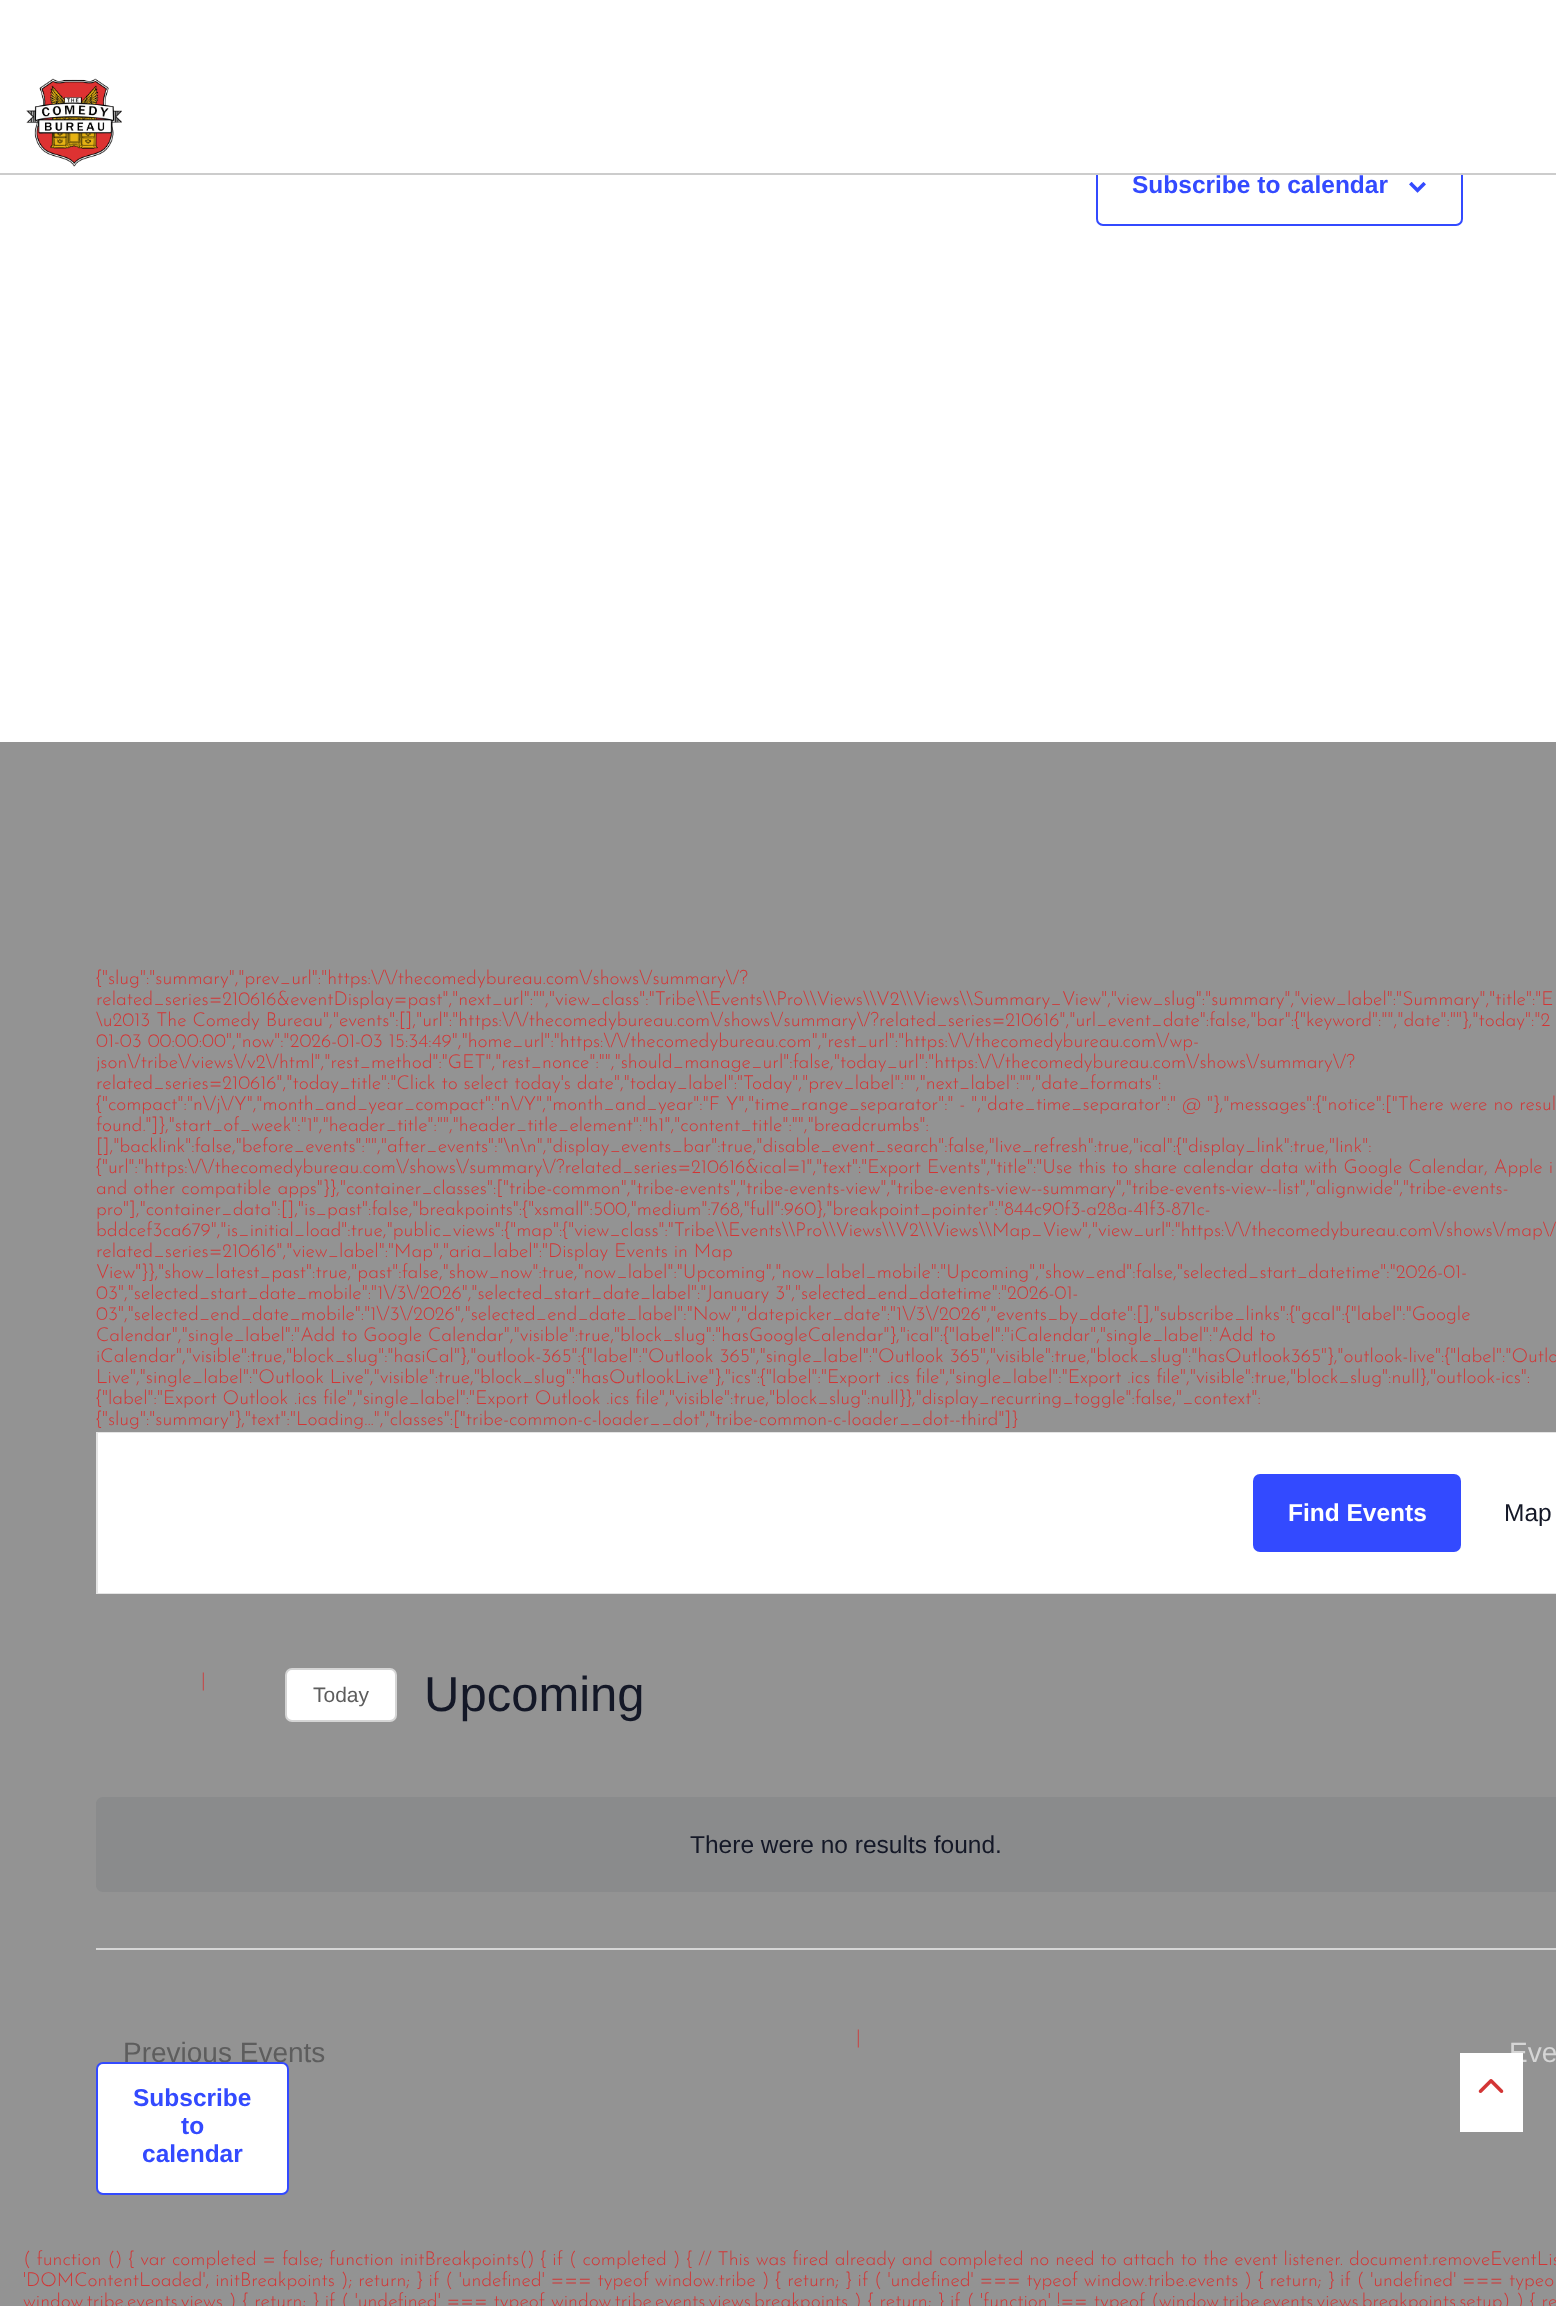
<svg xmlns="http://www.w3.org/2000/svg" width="1556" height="2306">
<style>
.a{font:bold 24.5px Liberation Sans;fill:#334aff}
.b{font:300 19.25px Josefin Sans;fill:#d33535}
.c{font:bold 24.5px Liberation Sans;fill:#fff}
.d{font:24.5px Liberation Sans;fill:#141827}
.e{font:21px Liberation Sans;fill:#5d5d5d}
.f{font:49px Liberation Sans;fill:#141827}
.g{font:28px Liberation Sans;fill:#5d5d5d}
.h{font:28px Liberation Sans;fill:#d5d5d5}
</style>
<rect width="100%" height="100%" fill="#fff"/>
<rect fill="none" stroke="#334aff" stroke-width="2" x="1097" y="145" width="365" height="80" rx="6"/>
<path fill="#fff" d="M1096 144h367v29H1096z"/>
<image href="1.png" x="26" y="78" width="96" height="89"/>
<path fill="#ccc" d="M0 173h1556v2H0z"/>
<image href="2.png" x="1409" y="182" width="17" height="11"/>
<path fill="#939393" d="M0 742h1556v1564H0z"/>
<path fill="none" stroke="#e4e4e4" stroke-width="2" d="M97 1433h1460v160H97z"/>
<path fill="#fff" d="M98 1433h1458v160H98z"/>
<rect fill="#334aff" x="1253" y="1474" width="208" height="78" rx="7"/>
<rect fill="#fff" stroke="#d5d5d5" stroke-width="2" x="286" y="1669" width="110" height="52" rx="6"/>
<path fill="#8a8b8c" d="M103 1797h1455v95h-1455c-4 0-7-3-7-7v-81c0-4 3-7 7-7z"/>
<path fill="#d5d5d5" d="M96 1948h1460v2H96z"/>
<text class="a" x="1132" y="193">Subscribe to calendar</text>
<text class="b" x="96" y="984">{"slug":"summary","prev_url":"https:\/\/thecomedybureau.com\/shows\/summary\/?</text>
<text class="b" x="96" y="1005">related_series=210616&amp;eventDisplay=past","next_url":"","view_class":"Tribe\\Events\\Pro\\Views\\V2\\Views\\Summary_View","view_slug":"summary","view_label":"Summary","title":"E</text>
<text class="b" x="96" y="1026">\u2013 The Comedy Bureau","events":[],"url":"https:\/\/thecomedybureau.com\/shows\/summary\/?related_series=210616","url_event_date":false,"bar":{"keyword":"","date":""},"today":"2</text>
<text class="b" x="96" y="1047">01-03 00:00:00","now":"2026-01-03 15:34:49","home_url":"https:\/\/thecomedybureau.com","rest_url":"https:\/\/thecomedybureau.com\/wp-</text>
<text class="b" x="96" y="1068">json\/tribe\/views\/v2\/html","rest_method":"GET","rest_nonce":"","should_manage_url":false,"today_url":"https:\/\/thecomedybureau.com\/shows\/summary\/?</text>
<text class="b" x="96" y="1089">related_series=210616","today_title":"Click to select today's date","today_label":"Today","prev_label":"","next_label":"","date_formats":</text>
<text class="b" x="96" y="1110">{"compact":"n\/j\/Y","month_and_year_compact":"n\/Y","month_and_year":"F Y","time_range_separator":" - ","date_time_separator":" @ "},"messages":{"notice":["There were no resul</text>
<text class="b" x="96" y="1131">found."]},"start_of_week":"1","header_title":"","header_title_element":"h1","content_title":"","breadcrumbs":</text>
<text class="b" x="96" y="1152">[],"backlink":false,"before_events":"","after_events":"\n\n","display_events_bar":true,"disable_event_search":false,"live_refresh":true,"ical":{"display_link":true,"link":</text>
<text class="b" x="96" y="1173">{"url":"https:\/\/thecomedybureau.com\/shows\/summary\/?related_series=210616&amp;ical=1","text":"Export Events","title":"Use this to share calendar data with Google Calendar, Apple i</text>
<text class="b" x="96" y="1194">and other compatible apps"}},"container_classes":["tribe-common","tribe-events","tribe-events-view","tribe-events-view--summary","tribe-events-view--list","alignwide","tribe-events-</text>
<text class="b" x="96" y="1215">pro"],"container_data":[],"is_past":false,"breakpoints":{"xsmall":500,"medium":768,"full":960},"breakpoint_pointer":"844c90f3-a28a-41f3-871c-</text>
<text class="b" x="96" y="1236">bddcef3ca679","is_initial_load":true,"public_views":{"map":{"view_class":"Tribe\\Events\\Pro\\Views\\V2\\Views\\Map_View","view_url":"https:\/\/thecomedybureau.com\/shows\/map\/</text>
<text class="b" x="96" y="1257">related_series=210616","view_label":"Map","aria_label":"Display Events in Map</text>
<text class="b" x="96" y="1278">View"}},"show_latest_past":true,"past":false,"show_now":true,"now_label":"Upcoming","now_label_mobile":"Upcoming","show_end":false,"selected_start_datetime":"2026-01-</text>
<text class="b" x="96" y="1299">03","selected_start_date_mobile":"1\/3\/2026","selected_start_date_label":"January 3","selected_end_datetime":"2026-01-</text>
<text class="b" x="96" y="1320">03","selected_end_date_mobile":"1\/3\/2026","selected_end_date_label":"Now","datepicker_date":"1\/3\/2026","events_by_date":[],"subscribe_links":{"gcal":{"label":"Google</text>
<text class="b" x="96" y="1341">Calendar","single_label":"Add to Google Calendar","visible":true,"block_slug":"hasGoogleCalendar"},"ical":{"label":"iCalendar","single_label":"Add to</text>
<text class="b" x="96" y="1362">iCalendar","visible":true,"block_slug":"hasiCal"},"outlook-365":{"label":"Outlook 365","single_label":"Outlook 365","visible":true,"block_slug":"hasOutlook365"},"outlook-live":{"label":"Outlo</text>
<text class="b" x="96" y="1383">Live","single_label":"Outlook Live","visible":true,"block_slug":"hasOutlookLive"},"ics":{"label":"Export .ics file","single_label":"Export .ics file","visible":true,"block_slug":null},"outlook-ics":</text>
<text class="b" x="96" y="1404">{"label":"Export Outlook .ics file","single_label":"Export Outlook .ics file","visible":true,"block_slug":null}},"display_recurring_toggle":false,"_context":</text>
<text class="b" x="96" y="1425">{"slug":"summary"},"text":"Loading...","classes":["tribe-common-c-loader__dot","tribe-common-c-loader__dot--third"]}</text>
<text class="c" x="1288" y="1521">Find Events</text>
<text class="d" x="1504" y="1521">Map</text>
<text class="b" x="201" y="1686">|</text>
<text class="e" x="313" y="1702">Today</text>
<text class="f" x="424" y="1711">Upcoming</text>
<text class="d" x="690" y="1853">There were no results found.</text>
<text class="g" x="123" y="2062">Previous Events</text>
<text class="b" x="856" y="2043">|</text>
<text class="h" x="1509" y="2062">Eve</text>
<rect fill="#fff" stroke="#334aff" stroke-width="2" x="97" y="2063" width="191" height="131" rx="6"/>
<text class="a" x="133" y="2106">Subscribe</text>
<text class="a" x="181" y="2134">to</text>
<text class="a" x="142" y="2162">calendar</text>
<text class="b" x="23" y="2265">( function () { var completed = false; function initBreakpoints() { if ( completed ) { // This was fired already and completed no need to attach to the event listener. document.removeEventLis</text>
<text class="b" x="23" y="2286">'DOMContentLoaded', initBreakpoints ); return; } if ( 'undefined' === typeof window.tribe ) { return; } if ( 'undefined' === typeof window.tribe.events ) { return; } if ( 'undefined' === typeo</text>
<text class="b" x="23" y="2307">window.tribe.events.views ) { return; } if ( 'undefined' === typeof window.tribe.events.views.breakpoints ) { return; } if ( 'function' !== typeof (window.tribe.events.views.breakpoints.setup) ) { re</text>
<path fill="#fff" d="M1460 2053h63v79H1460z"/>
<image href="3.png" x="1478" y="2079" width="26" height="14"/>
</svg>
